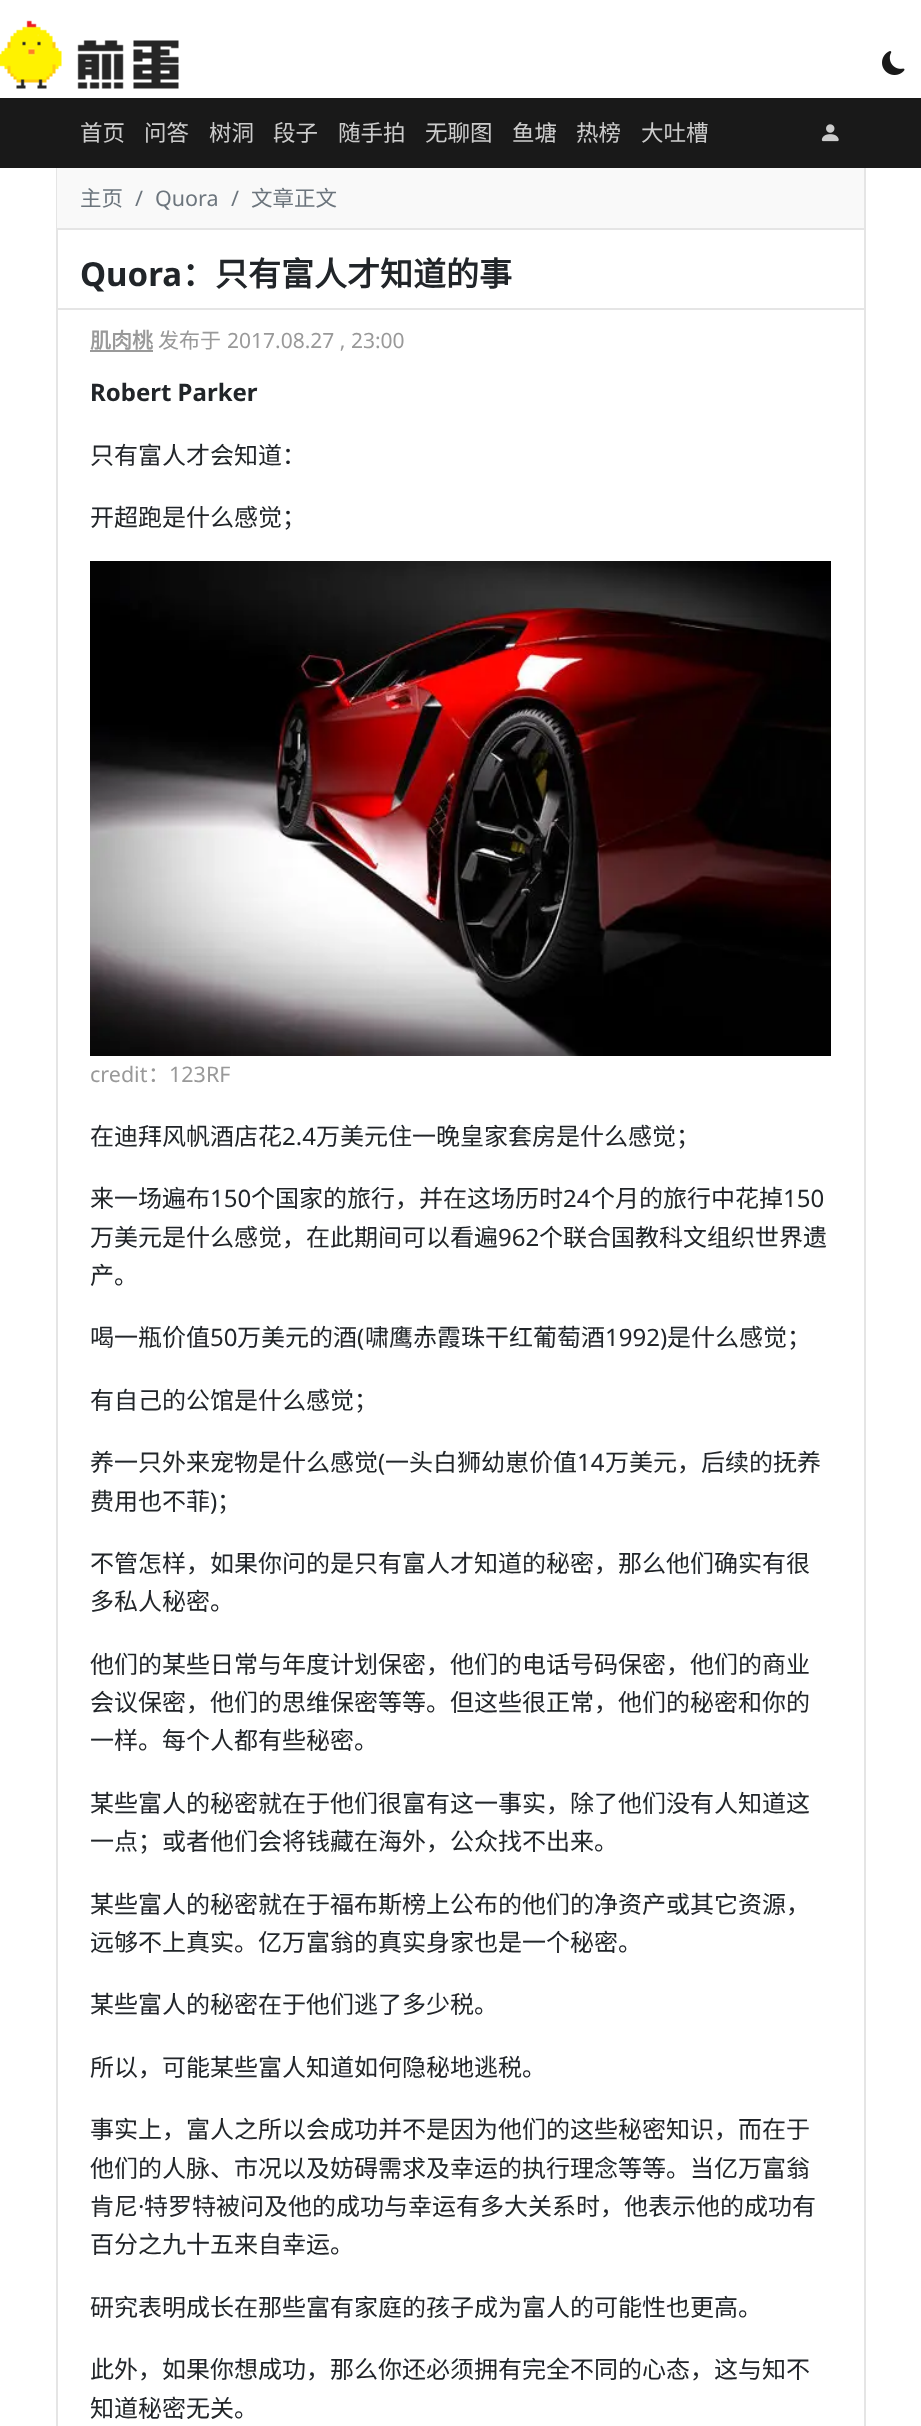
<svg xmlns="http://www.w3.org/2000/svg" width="921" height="2426">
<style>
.a{font:22.5px Noto Sans CJK SC;fill:#ccc}
.b{font:21.5px Noto Sans CJK SC;fill:#6c757d}
.c{font:21.5px Noto Sans;fill:#6c757d}
.d{font:bold 33px Noto Sans;fill:#212529}
.e{font:bold 33px Noto Sans CJK SC;fill:#212529}
.f{font:bold 21px Noto Sans CJK SC;fill:#999}
.g{font:21px Noto Sans CJK SC;fill:#999}
.h{font:21px Noto Sans;fill:#999}
.i{font:bold 24px Noto Sans;fill:#212529}
.j{font:24px Noto Sans CJK SC;fill:#212529}
.k{font:21.5px Noto Sans;fill:#999}
.l{font:21.5px Noto Sans CJK SC;fill:#999}
.m{font:24px Noto Sans;fill:#212529}
</style>
<rect width="100%" height="100%" fill="#fff"/>
<image href="1.png" x="0" y="20" width="179" height="69"/>
<image href="2.png" x="882" y="51" width="23" height="24"/>
<path fill="#191919" d="M0 98h921v70H0z"/>
<image href="3.png" x="821" y="124" width="18" height="18"/>
<path fill="#e5e5e5" d="M864 168h2v2258H864z"/>
<path fill="#e5e5e5" d="M56 168h2v2258H56z"/>
<path fill="#f9f9f9" d="M57 168h807v60H57z"/>
<path fill="#e5e5e5" d="M57 228h807v2H57z"/>
<path fill="#e5e5e5" d="M57 308h807v2H57z"/>
<path fill="#999" d="M90 350h63v2H90z"/>
<image href="4.png" x="90" y="561" width="741" height="495"/>
<text class="a" x="80" y="141">首页</text>
<text class="a" x="144" y="141">问答</text>
<text class="a" x="209" y="141">树洞</text>
<text class="a" x="273" y="141">段子</text>
<text class="a" x="338" y="141">随手拍</text>
<text class="a" x="425" y="141">无聊图</text>
<text class="a" x="512" y="141">鱼塘</text>
<text class="a" x="576" y="141">热榜</text>
<text class="a" x="641" y="141">大吐槽</text>
<text class="b" x="80" y="206">主页</text>
<text class="c" x="135" y="206">/</text>
<text class="c" x="155" y="206">Quora</text>
<text class="c" x="231" y="206">/</text>
<text class="b" x="251" y="206">文章正文</text>
<text class="d" x="80" y="286">Quora</text>
<text class="e" x="182" y="286">：只有富人才知道的事</text>
<text class="f" x="90" y="348">肌肉桃</text>
<text class="g" x="158" y="348">发布于</text>
<text class="h" x="227" y="348">2017.08.27 , 23:00</text>
<text class="i" x="90" y="401">Robert Parker</text>
<text class="j" x="90" y="464">只有富人才会知道：</text>
<text class="j" x="90" y="526">开超跑是什么感觉；</text>
<text class="k" x="90" y="1082">credit</text>
<text class="l" x="148" y="1082">：</text>
<text class="k" x="169" y="1082">123RF</text>
<text class="j" x="90" y="1145">在迪拜风帆酒店花</text>
<text class="m" x="282" y="1145">2.4</text>
<text class="j" x="316" y="1145">万美元住一晚皇家套房是什么感觉；</text>
<text class="j" x="90" y="1207">来一场遍布</text>
<text class="m" x="210" y="1207">150</text>
<text class="j" x="251" y="1207">个国家的旅行，并在这场历时</text>
<text class="m" x="563" y="1207">24</text>
<text class="j" x="591" y="1207">个月的旅行中花掉</text>
<text class="m" x="783" y="1207">150</text>
<text class="j" x="90" y="1246">万美元是什么感觉，在此期间可以看遍</text>
<text class="m" x="498" y="1246">962</text>
<text class="j" x="539" y="1246">个联合国教科文组织世界遗</text>
<text class="j" x="90" y="1284">产。</text>
<text class="j" x="90" y="1346">喝一瓶价值</text>
<text class="m" x="210" y="1346">50</text>
<text class="j" x="237" y="1346">万美元的酒</text>
<text class="m" x="357" y="1346">(</text>
<text class="j" x="365" y="1346">啸鹰赤霞珠干红葡萄酒</text>
<text class="m" x="605" y="1346">1992)</text>
<text class="j" x="667" y="1346">是什么感觉；</text>
<text class="j" x="90" y="1409">有自己的公馆是什么感觉；</text>
<text class="j" x="90" y="1471">养一只外来宠物是什么感觉</text>
<text class="m" x="378" y="1471">(</text>
<text class="j" x="385" y="1471">一头白狮幼崽价值</text>
<text class="m" x="577" y="1471">14</text>
<text class="j" x="605" y="1471">万美元，后续的抚养</text>
<text class="j" x="90" y="1510">费用也不菲</text>
<text class="m" x="210" y="1510">)</text>
<text class="j" x="217" y="1510">；</text>
<text class="j" x="90" y="1572">不管怎样，如果你问的是只有富人才知道的秘密，那么他们确实有很</text>
<text class="j" x="90" y="1610">多私人秘密。</text>
<text class="j" x="90" y="1673">他们的某些日常与年度计划保密，他们的电话号码保密，他们的商业</text>
<text class="j" x="90" y="1711">会议保密，他们的思维保密等等。但这些很正常，他们的秘密和你的</text>
<text class="j" x="90" y="1749">一样。每个人都有些秘密。</text>
<text class="j" x="90" y="1812">某些富人的秘密就在于他们很富有这一事实，除了他们没有人知道这</text>
<text class="j" x="90" y="1850">一点；或者他们会将钱藏在海外，公众找不出来。</text>
<text class="j" x="90" y="1913">某些富人的秘密就在于福布斯榜上公布的他们的净资产或其它资源，</text>
<text class="j" x="90" y="1951">远够不上真实。亿万富翁的真实身家也是一个秘密。</text>
<text class="j" x="90" y="2013">某些富人的秘密在于他们逃了多少税。</text>
<text class="j" x="90" y="2076">所以，可能某些富人知道如何隐秘地逃税。</text>
<text class="j" x="90" y="2138">事实上，富人之所以会成功并不是因为他们的这些秘密知识，而在于</text>
<text class="j" x="90" y="2177">他们的人脉、市况以及妨碍需求及幸运的执行理念等等。当亿万富翁</text>
<text class="j" x="90" y="2215">肯尼</text>
<text class="m" x="138" y="2215">·</text>
<text class="j" x="144" y="2215">特罗特被问及他的成功与幸运有多大关系时，他表示他的成功有</text>
<text class="j" x="90" y="2253">百分之九十五来自幸运。</text>
<text class="j" x="90" y="2316">研究表明成长在那些富有家庭的孩子成为富人的可能性也更高。</text>
<text class="j" x="90" y="2378">此外，如果你想成功，那么你还必须拥有完全不同的心态，这与知不</text>
<text class="j" x="90" y="2417">知道秘密无关。</text>
</svg>
